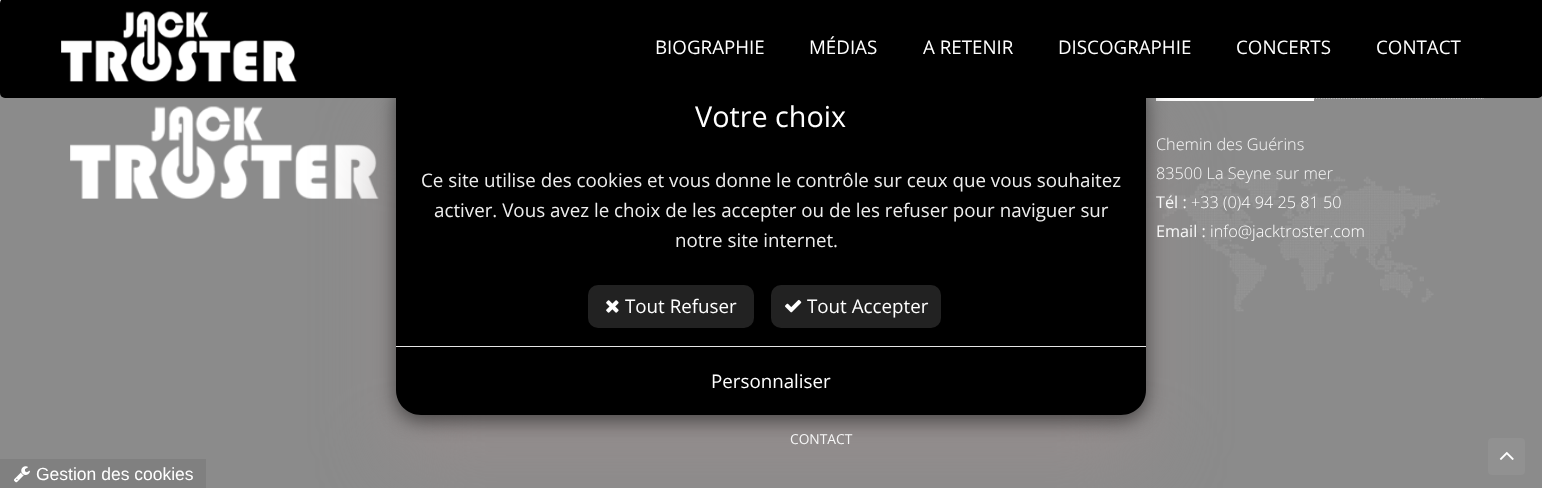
<svg xmlns="http://www.w3.org/2000/svg" width="1542" height="488">
<style>
.a{font:18.75px Open Sans;fill:#fff}
.b{font:300 16.25px Open Sans;fill:#f7f7f7}
.c{font:16.25px Open Sans;fill:#f7f7f7}
.d{font:300 16.25px Open Sans;fill:#fff}
.e{font:13.75px Open Sans;fill:#f7f7f7}
.f{font:28.75px Open Sans;fill:#fff}
.g{font:18.75px Open Sans;fill:#eee}
.h{font:17.5px Liberation Sans;fill:#fff}
</style>
<rect width="100%" height="100%" fill="#808080"/>
<path fill="#fffffff5" d="M0 0h1v3H0z"/>
<path fill="#8b8b8b" d="M0 93h1542v395H0z"/>
<path fill="none" stroke="#f2f4f8" stroke-width="1.2" stroke-dasharray="1.25 1.25" d="M1156 98h328"/>
<image href="2.png" x="70" y="106" width="309" height="93"/>
<image href="3.png" x="1162" y="172" width="278" height="140"/>
<path fill="#fff" d="M1156 98h158v3H1156z"/>
<path fill="#9a9a9a" d="M790 419h329v1H790z"/>
<rect fill="#958d8de0" filter="blur(37.5px)" x="396" y="124" width="750" height="341" rx="25"/>
<rect fill="#00000080" filter="blur(9.5px)" x="396" y="80" width="750" height="341" rx="25"/>
<rect fill="#000" y="-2" width="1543" height="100" rx="5"/>
<image href="1.png" x="61" y="11" width="236" height="71"/>
<path fill="#000" d="M396 98h750v248H396z"/>
<rect fill="#222" x="588" y="285" width="166" height="43" rx="10"/>
<image href="4.png" x="606" y="300" width="13" height="13"/>
<rect fill="#222" x="771" y="285" width="170" height="43" rx="10"/>
<image href="5.png" x="785" y="299" width="17" height="14"/>
<path fill="#000" d="M396 346h750v44c0 14-11 25-25 25h-700c-14 0-25-11-25-25z"/>
<path fill="#e5e5e5" d="M396 346h750v1H396z"/>
<path fill="#808080" d="M0 459h206v29H0z"/>
<image href="6.png" x="14" y="466" width="16" height="17"/>
<rect fill="#919191" x="1488" y="438" width="37" height="37" rx="4"/>
<image href="7.png" x="1499" y="451" width="15" height="9"/>
<text class="a" x="655" y="54">BIOGRAPHIE</text>
<text class="a" x="809" y="54">MÉDIAS</text>
<text class="a" x="923" y="54">A RETENIR</text>
<text class="a" x="1058" y="54">DISCOGRAPHIE</text>
<text class="a" x="1236" y="54">CONCERTS</text>
<text class="a" x="1376" y="54">CONTACT</text>
<text class="b" x="1156" y="150">Chemin des Guérins</text>
<text class="b" x="1156" y="179">83500 La Seyne sur mer</text>
<text class="c" x="1156" y="208">Tél :</text>
<text class="d" x="1191" y="208">+33 (0)4 94 25 81 50</text>
<text class="c" x="1156" y="237">Email :</text>
<text class="d" x="1210" y="237">info@jacktroster.com</text>
<text class="e" x="790" y="444">CONTACT</text>
<text class="f" x="695" y="127">Votre choix</text>
<text class="g" x="421" y="187">Ce site utilise des cookies et vous donne le contrôle sur ceux que vous souhaitez</text>
<text class="g" x="434" y="217">activer. Vous avez le choix de les accepter ou de les refuser pour naviguer sur</text>
<text class="g" x="675" y="247">notre site internet.</text>
<text class="a" x="625" y="313">Tout Refuser</text>
<text class="a" x="807" y="313">Tout Accepter</text>
<text class="a" x="711" y="388">Personnaliser</text>
<text class="h" x="36" y="480">Gestion des cookies</text>
</svg>
